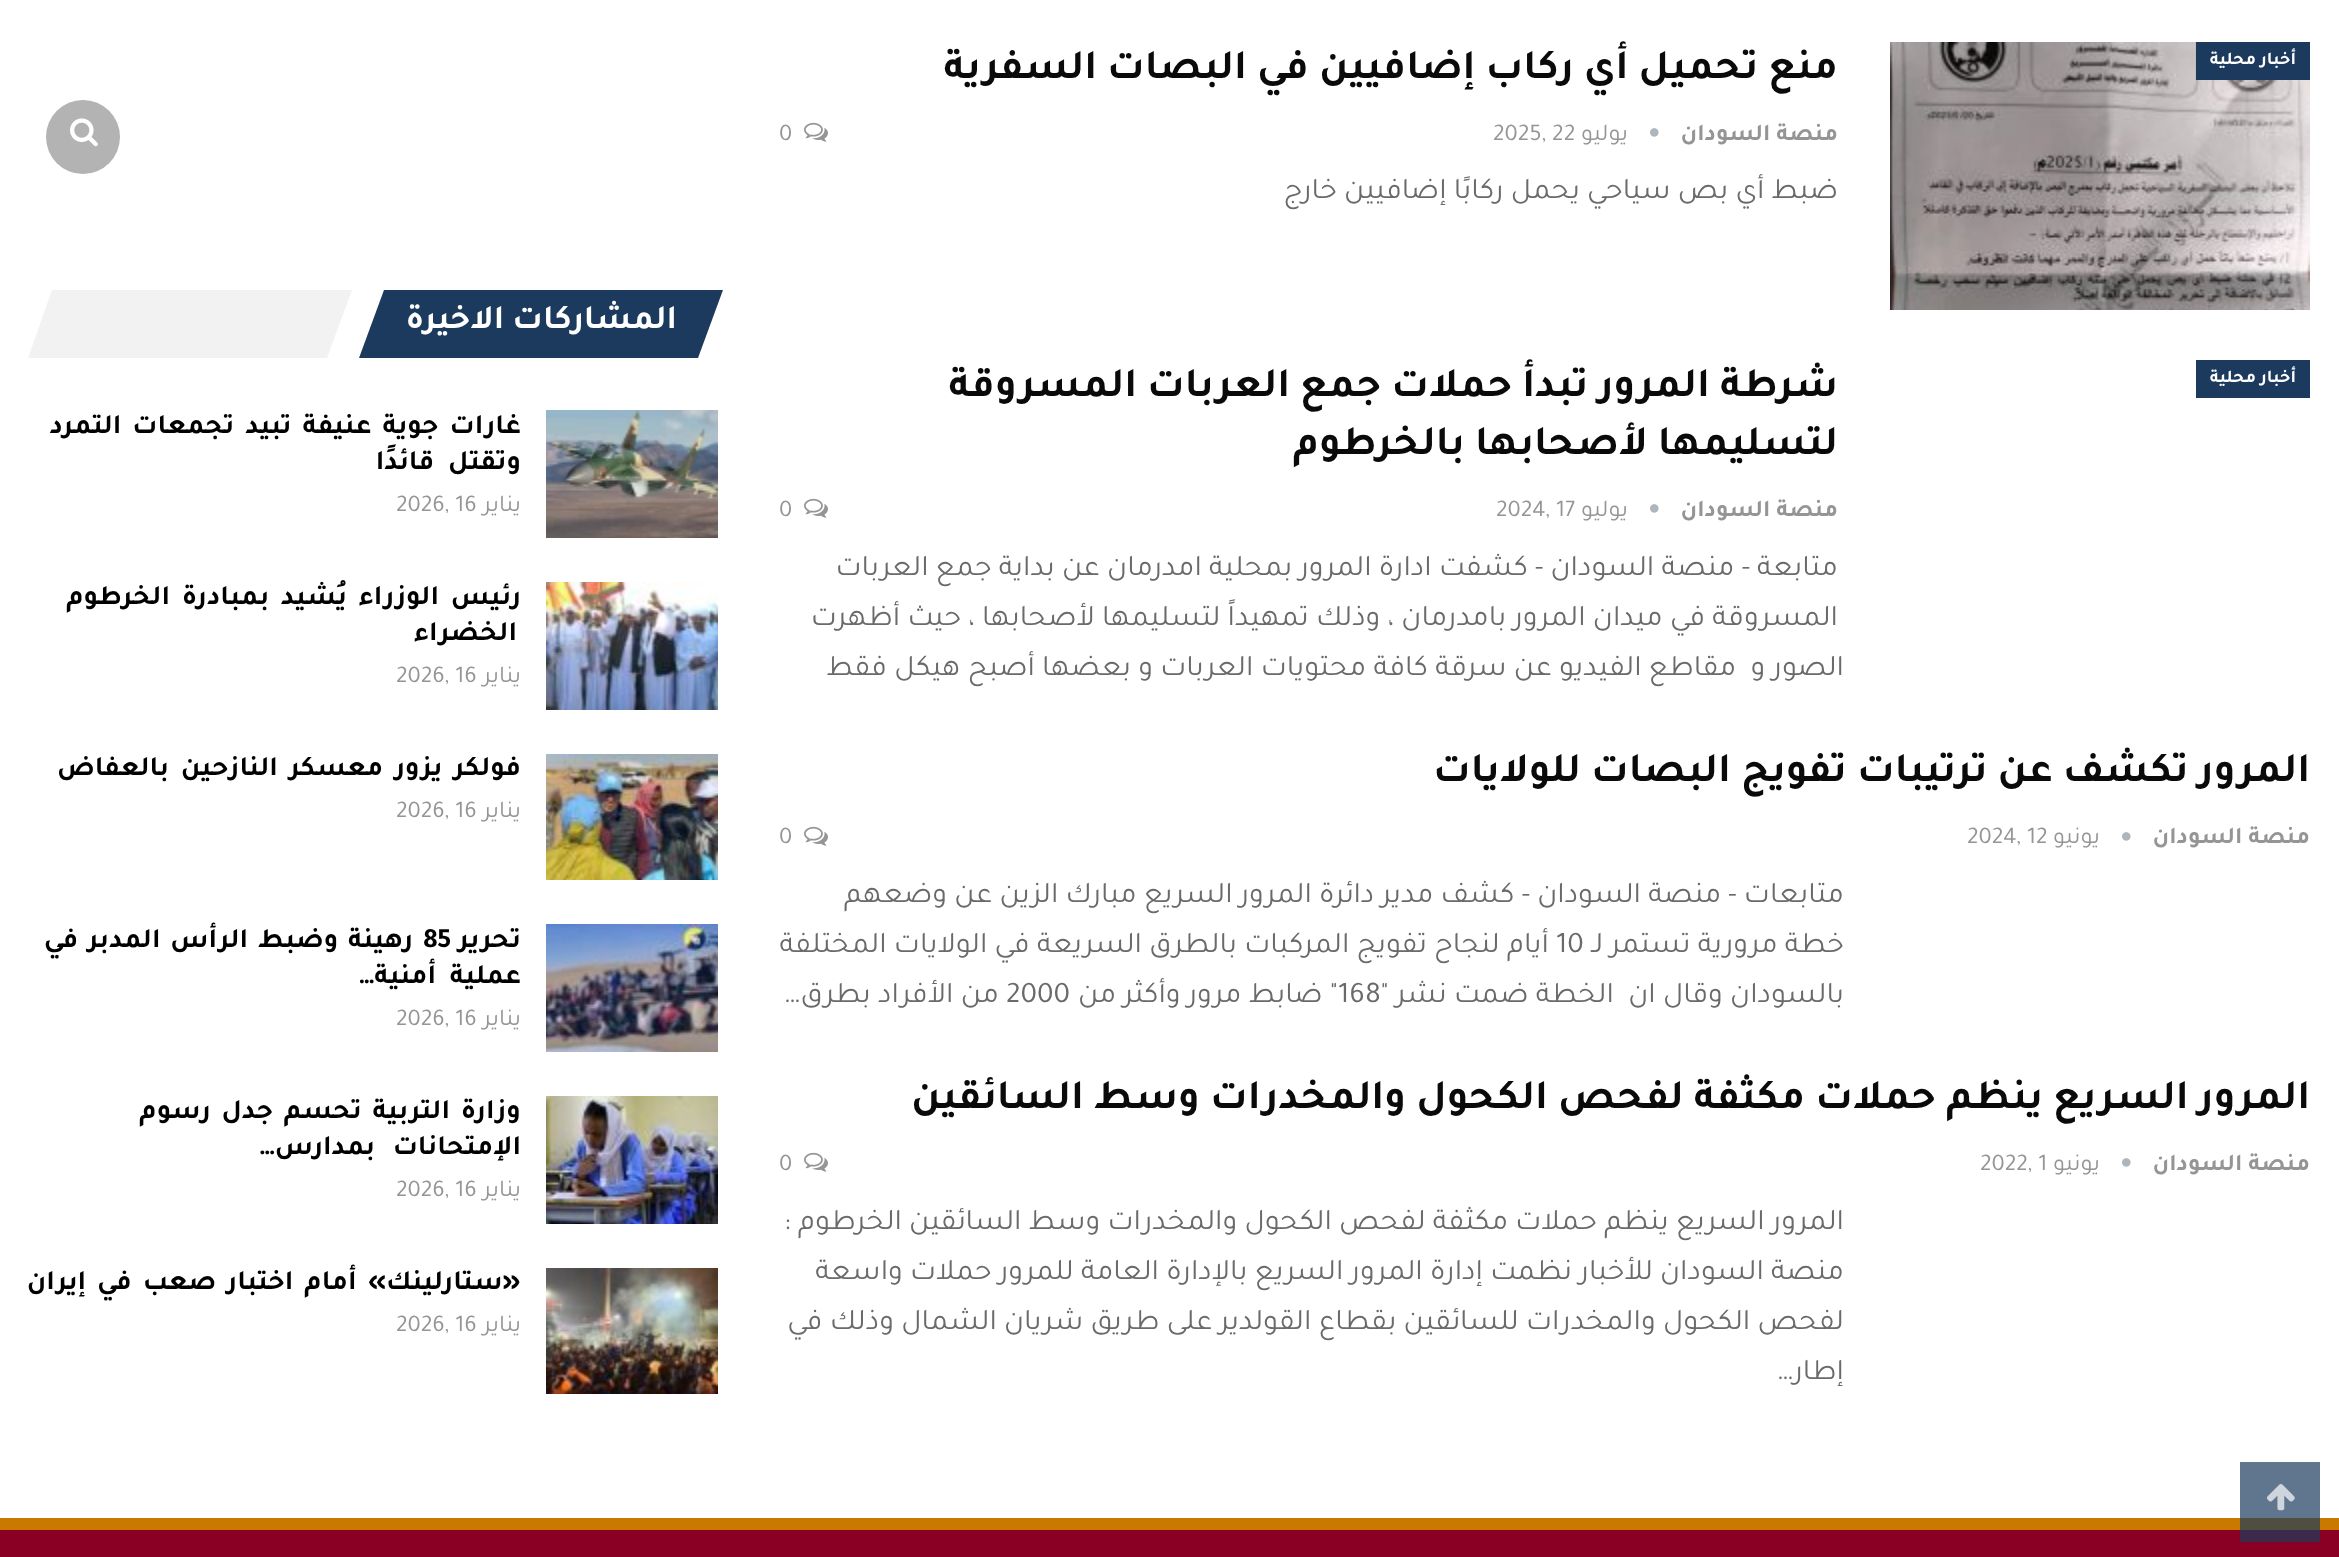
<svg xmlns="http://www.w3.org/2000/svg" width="2339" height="1557">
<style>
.a{font:bold 18px Tajawal;direction:rtl;fill:#fff}
.b{font:bold 42px Tajawal;direction:rtl;fill:#0a0a0a}
.c{font:bold 24px Tajawal;direction:rtl;fill:#959595}
.d{font:24px Tajawal;direction:rtl;fill:#959595}
.e{font:24px Tajawal;fill:#959595}
.f{font:30px Tajawal;direction:rtl;fill:#6a6a6a}
.g{font:30px Tajawal;fill:#6a6a6a}
.h{font:bold 34px Tajawal;direction:rtl;fill:#fff}
.i{font:bold 28px Tajawal;letter-spacing:-0.6px;direction:rtl;fill:#000}
.j{font:bold 28px Tajawal;letter-spacing:-0.6px;fill:#000}
</style>
<rect width="100%" height="100%" fill="#fff"/>
<path fill="#60758e" d="M2240 1462h80v56H2240z"/>
<image href="1.png" x="1890" y="42" width="420" height="268"/>
<path fill="#1c3a5d" d="M2196 42h114v38H2196z"/>
<image href="2.png" x="1650" y="128" width="9" height="9"/>
<image href="3.png" x="804" y="122" width="24" height="20"/>
<path fill="#1c3a5d" d="M2196 360h114v38H2196z"/>
<image href="2.png" x="1650" y="504" width="9" height="9"/>
<image href="3.png" x="804" y="498" width="24" height="20"/>
<image href="2.png" x="2122" y="832" width="9" height="9"/>
<image href="3.png" x="804" y="826" width="24" height="20"/>
<image href="2.png" x="2122" y="1158" width="9" height="9"/>
<image href="3.png" x="804" y="1152" width="24" height="20"/>
<path fill="#f2f2f2" d="M52 290h669l-25 68h-668z"/>
<path fill="#1c3a5d" d="M359 290h334v68H359z"/>
<path fill="#fff" d="M352 290h32l-25 68h-32z"/>
<image href="4.png" x="546" y="410" width="172" height="128"/>
<image href="5.png" x="546" y="582" width="172" height="128"/>
<image href="6.png" x="546" y="754" width="172" height="126"/>
<image href="7.png" x="546" y="924" width="172" height="128"/>
<image href="8.png" x="546" y="1096" width="172" height="128"/>
<image href="9.png" x="546" y="1268" width="172" height="126"/>
<circle fill="#b3b3b3" cx="83" cy="137" r="37"/>
<image href="10.png" x="70" y="118" width="28" height="29"/>
<path fill="#890024" d="M0 1530h2339v27H0z"/>
<path fill="#3d294c" d="M2240 1530h80v12H2240z"/>
<path fill="#c97800" d="M0 1518h2339v12H0z"/>
<path fill="#504d41" d="M2240 1518h80v12H2240z"/>
<image href="11.png" x="2267" y="1484" width="28" height="27"/>
<text class="a" x="2296" y="64">أخبار محلية</text>
<text class="b" x="1838" y="78">منع تحميل أي ركاب إضافيين في البصات السفرية</text>
<text class="c" x="1838" y="140">منصة السودان</text>
<text class="d" x="1628" y="140">يوليو</text>
<text class="e" x="1493" y="140">2025, 22</text>
<text class="e" x="779" y="140">0</text>
<text class="f" x="1838" y="198">ضبط أي بص سياحي يحمل ركابًا إضافيين خارج</text>
<text class="a" x="2296" y="382">أخبار محلية</text>
<text class="b" x="1838" y="396">شرطة المرور تبدأ حملات جمع العربات المسروقة</text>
<text class="b" x="1838" y="454">لتسليمها لأصحابها بالخرطوم</text>
<text class="c" x="1838" y="516">منصة السودان</text>
<text class="d" x="1628" y="516">يوليو</text>
<text class="e" x="1496" y="516">2024, 17</text>
<text class="e" x="779" y="516">0</text>
<text class="f" x="1838" y="575">متابعة - منصة السودان - كشفت ادارة المرور بمحلية امدرمان عن بداية جمع العربات</text>
<text class="f" x="1838" y="625">المسروقة في ميدان المرور بامدرمان ، وذلك تمهيداً لتسليمها لأصحابها ، حيث أظهرت</text>
<text class="f" xml:space="preserve" x="1844" y="675">الصور و  مقاطع الفيديو عن سرقة كافة محتويات العربات و بعضها أصبح هيكل فقط</text>
<text class="b" x="2310" y="781">المرور تكشف عن ترتيبات تفويج البصات للولايات</text>
<text class="c" x="2310" y="843">منصة السودان</text>
<text class="d" x="2100" y="843">يونيو</text>
<text class="e" x="1967" y="843">2024, 12</text>
<text class="e" x="779" y="843">0</text>
<text class="f" x="1844" y="902">متابعات - منصة السودان - كشف مدير دائرة المرور السريع مبارك الزين عن وضعهم</text>
<text class="f" x="1844" y="952">خطة مرورية تستمر لـ</text>
<text class="g" x="1556" y="952">10</text>
<text class="f" x="1549" y="952">أيام لنجاح تفويج المركبات بالطرق السريعة في الولايات المختلفة</text>
<text class="f" xml:space="preserve" x="1844" y="1002">بالسودان وقال ان  الخطة ضمت نشر "</text>
<text class="g" x="1338" y="1002">168</text>
<text class="f" x="1338" y="1002">" ضابط مرور وأكثر من</text>
<text class="g" x="1006" y="1002">2000</text>
<text class="f" x="999" y="1002">من الأفراد بطرق…</text>
<text class="b" x="2310" y="1108">المرور السريع ينظم حملات مكثفة لفحص الكحول والمخدرات وسط السائقين</text>
<text class="c" x="2310" y="1170">منصة السودان</text>
<text class="d" x="2100" y="1170">يونيو</text>
<text class="e" x="1980" y="1170">2022, 1</text>
<text class="e" x="779" y="1170">0</text>
<text class="f" x="1844" y="1229">المرور السريع ينظم حملات مكثفة لفحص الكحول والمخدرات وسط السائقين</text>
<text class="f" x="902" y="1229">الخرطوم :</text>
<text class="f" x="1844" y="1279">منصة السودان للأخبار</text>
<text class="f" x="1572" y="1279">نظمت إدارة المرور السريع بالإدارة العامة للمرور حملات واسعة</text>
<text class="f" x="1844" y="1329">لفحص الكحول والمخدرات للسائقين بقطاع القولدير على طريق شريان الشمال وذلك في</text>
<text class="f" x="1844" y="1379">إطار…</text>
<text class="h" x="677" y="328">المشاركات الاخيرة</text>
<path fill="#1c3a5d" d="M693 290h30l-25 68h-30z"/>
<text class="i" x="521" y="433" word-spacing="4.25">غارات جوية عنيفة تبيد تجمعات التمرد</text>
<text class="i" x="521" y="469" word-spacing="7">وتقتل قائدًا</text>
<text class="d" x="521" y="511">يناير</text>
<text class="e" x="396" y="511">2026, 16</text>
<text class="i" x="521" y="604" word-spacing="5">رئيس الوزراء يُشيد بمبادرة الخرطوم</text>
<text class="i" x="517" y="640">الخضراء</text>
<text class="d" x="521" y="682">يناير</text>
<text class="e" x="396" y="682">2026, 16</text>
<text class="i" x="521" y="775" word-spacing="5">فولكر يزور معسكر النازحين بالعفاض</text>
<text class="d" x="521" y="817">يناير</text>
<text class="e" x="396" y="817">2026, 16</text>
<text class="i" x="521" y="947">تحرير</text>
<text class="j" x="423" y="947">85</text>
<text class="i" x="413" y="947" word-spacing="3">رهينة وضبط الرأس المدبر في</text>
<text class="i" x="521" y="983" word-spacing="7">عملية أمنية…</text>
<text class="d" x="521" y="1025">يناير</text>
<text class="e" x="396" y="1025">2026, 16</text>
<text class="i" x="521" y="1118" word-spacing="4">وزارة التربية تحسم جدل رسوم</text>
<text class="i" x="521" y="1154" word-spacing="11">الإمتحانات بمدارس…</text>
<text class="d" x="521" y="1196">يناير</text>
<text class="e" x="396" y="1196">2026, 16</text>
<text class="i" x="521" y="1289" word-spacing="4.25">«ستارلينك» أمام اختبار صعب في إيران</text>
<text class="d" x="521" y="1331">يناير</text>
<text class="e" x="396" y="1331">2026, 16</text>
</svg>
